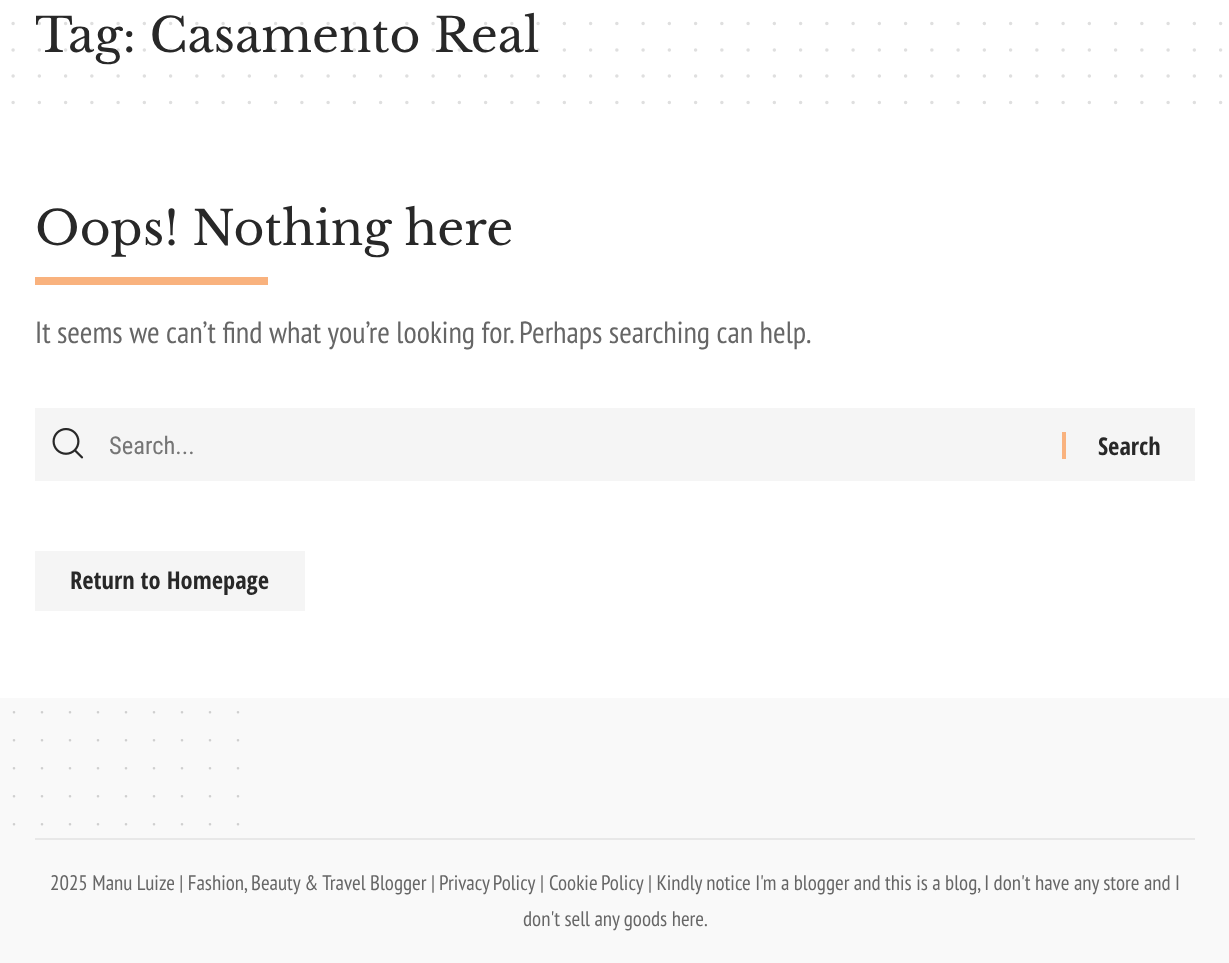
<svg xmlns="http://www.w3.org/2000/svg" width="1229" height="963">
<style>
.a{font:47.25px Libre Baskerville;fill:#282828}
.b{font:30.6px PT Sans Narrow;fill:#666}
.c{font:24.5px Roboto Condensed;fill:#757575}
.d{font:bold 24.5px Open Sans Condensed;fill:#282828}
.e{font:21px PT Sans Narrow;fill:#666}
</style>
<rect width="100%" height="100%" fill="#fff"/>
<path fill="none" stroke="#dfdfdf" stroke-width="3.5" stroke-linecap="round" stroke-dasharray="0 26.25" d="M13.1 76.1h1207.9"/>
<path fill="none" stroke="#dfdfdf" stroke-width="3.5" stroke-linecap="round" stroke-dasharray="0 26.25" d="M13.1 102.4h1207.9"/>
<path fill="#f9b27e" d="M35 277h233v8H35z"/>
<path fill="#f5f5f5" d="M35 408h1160v73H35z"/>
<image href="1.png" x="52" y="428" width="32" height="31"/>
<path fill="#f9b27e" d="M1062 432h4v27H1062z"/>
<path fill="#f5f5f5" d="M35 551h270v60H35z"/>
<path fill="#f9f9f9" d="M0 698h1229v265H0z"/>
<path fill="none" stroke="#cfcfcf" stroke-width="2.6" stroke-linecap="round" stroke-dasharray="0 28" d="M14 712.2h224.3"/>
<path fill="none" stroke="#cfcfcf" stroke-width="2.6" stroke-linecap="round" stroke-dasharray="0 28" d="M14 740.2h224.3"/>
<path fill="none" stroke="#cfcfcf" stroke-width="2.6" stroke-linecap="round" stroke-dasharray="0 28" d="M14 768.2h224.3"/>
<path fill="none" stroke="#cfcfcf" stroke-width="2.6" stroke-linecap="round" stroke-dasharray="0 28" d="M14 796.2h224.3"/>
<path fill="none" stroke="#cfcfcf" stroke-width="2.6" stroke-linecap="round" stroke-dasharray="0 28" d="M14 824.2h224.3"/>
<path fill="#e8e8e8" d="M35 838h1160v2H35z"/>
<text class="a" x="35" y="52">Tag: Casamento Real</text>
<path fill="none" stroke="#28282826" stroke-width="3.5" stroke-linecap="round" stroke-dasharray="0 26.25" d="M13.1 23.6h1207.9"/>
<path fill="none" stroke="#28282826" stroke-width="3.5" stroke-linecap="round" stroke-dasharray="0 26.25" d="M13.1 49.9h1207.9"/>
<text class="a" x="35" y="245">Oops! Nothing here</text>
<text class="b" x="35" y="343">It seems we can’t find what you’re looking for. Perhaps searching can help.</text>
<text class="c" x="109" y="454">Search...</text>
<text class="d" x="1098" y="455">Search</text>
<text class="d" x="70" y="589">Return to Homepage</text>
<text class="e" x="50" y="890">2025 Manu Luize | Fashion, Beauty &amp; Travel Blogger |</text>
<text class="e" x="439" y="890" word-spacing="-1">Privacy Policy</text>
<text class="e" x="540" y="890">|</text>
<text class="e" x="549" y="890" word-spacing="-1">Cookie Policy</text>
<text class="e" x="648" y="890">| Kindly notice I'm a blogger and this is a blog, I don't have any store and I</text>
<text class="e" x="523" y="926">don't sell any goods here.</text>
</svg>
